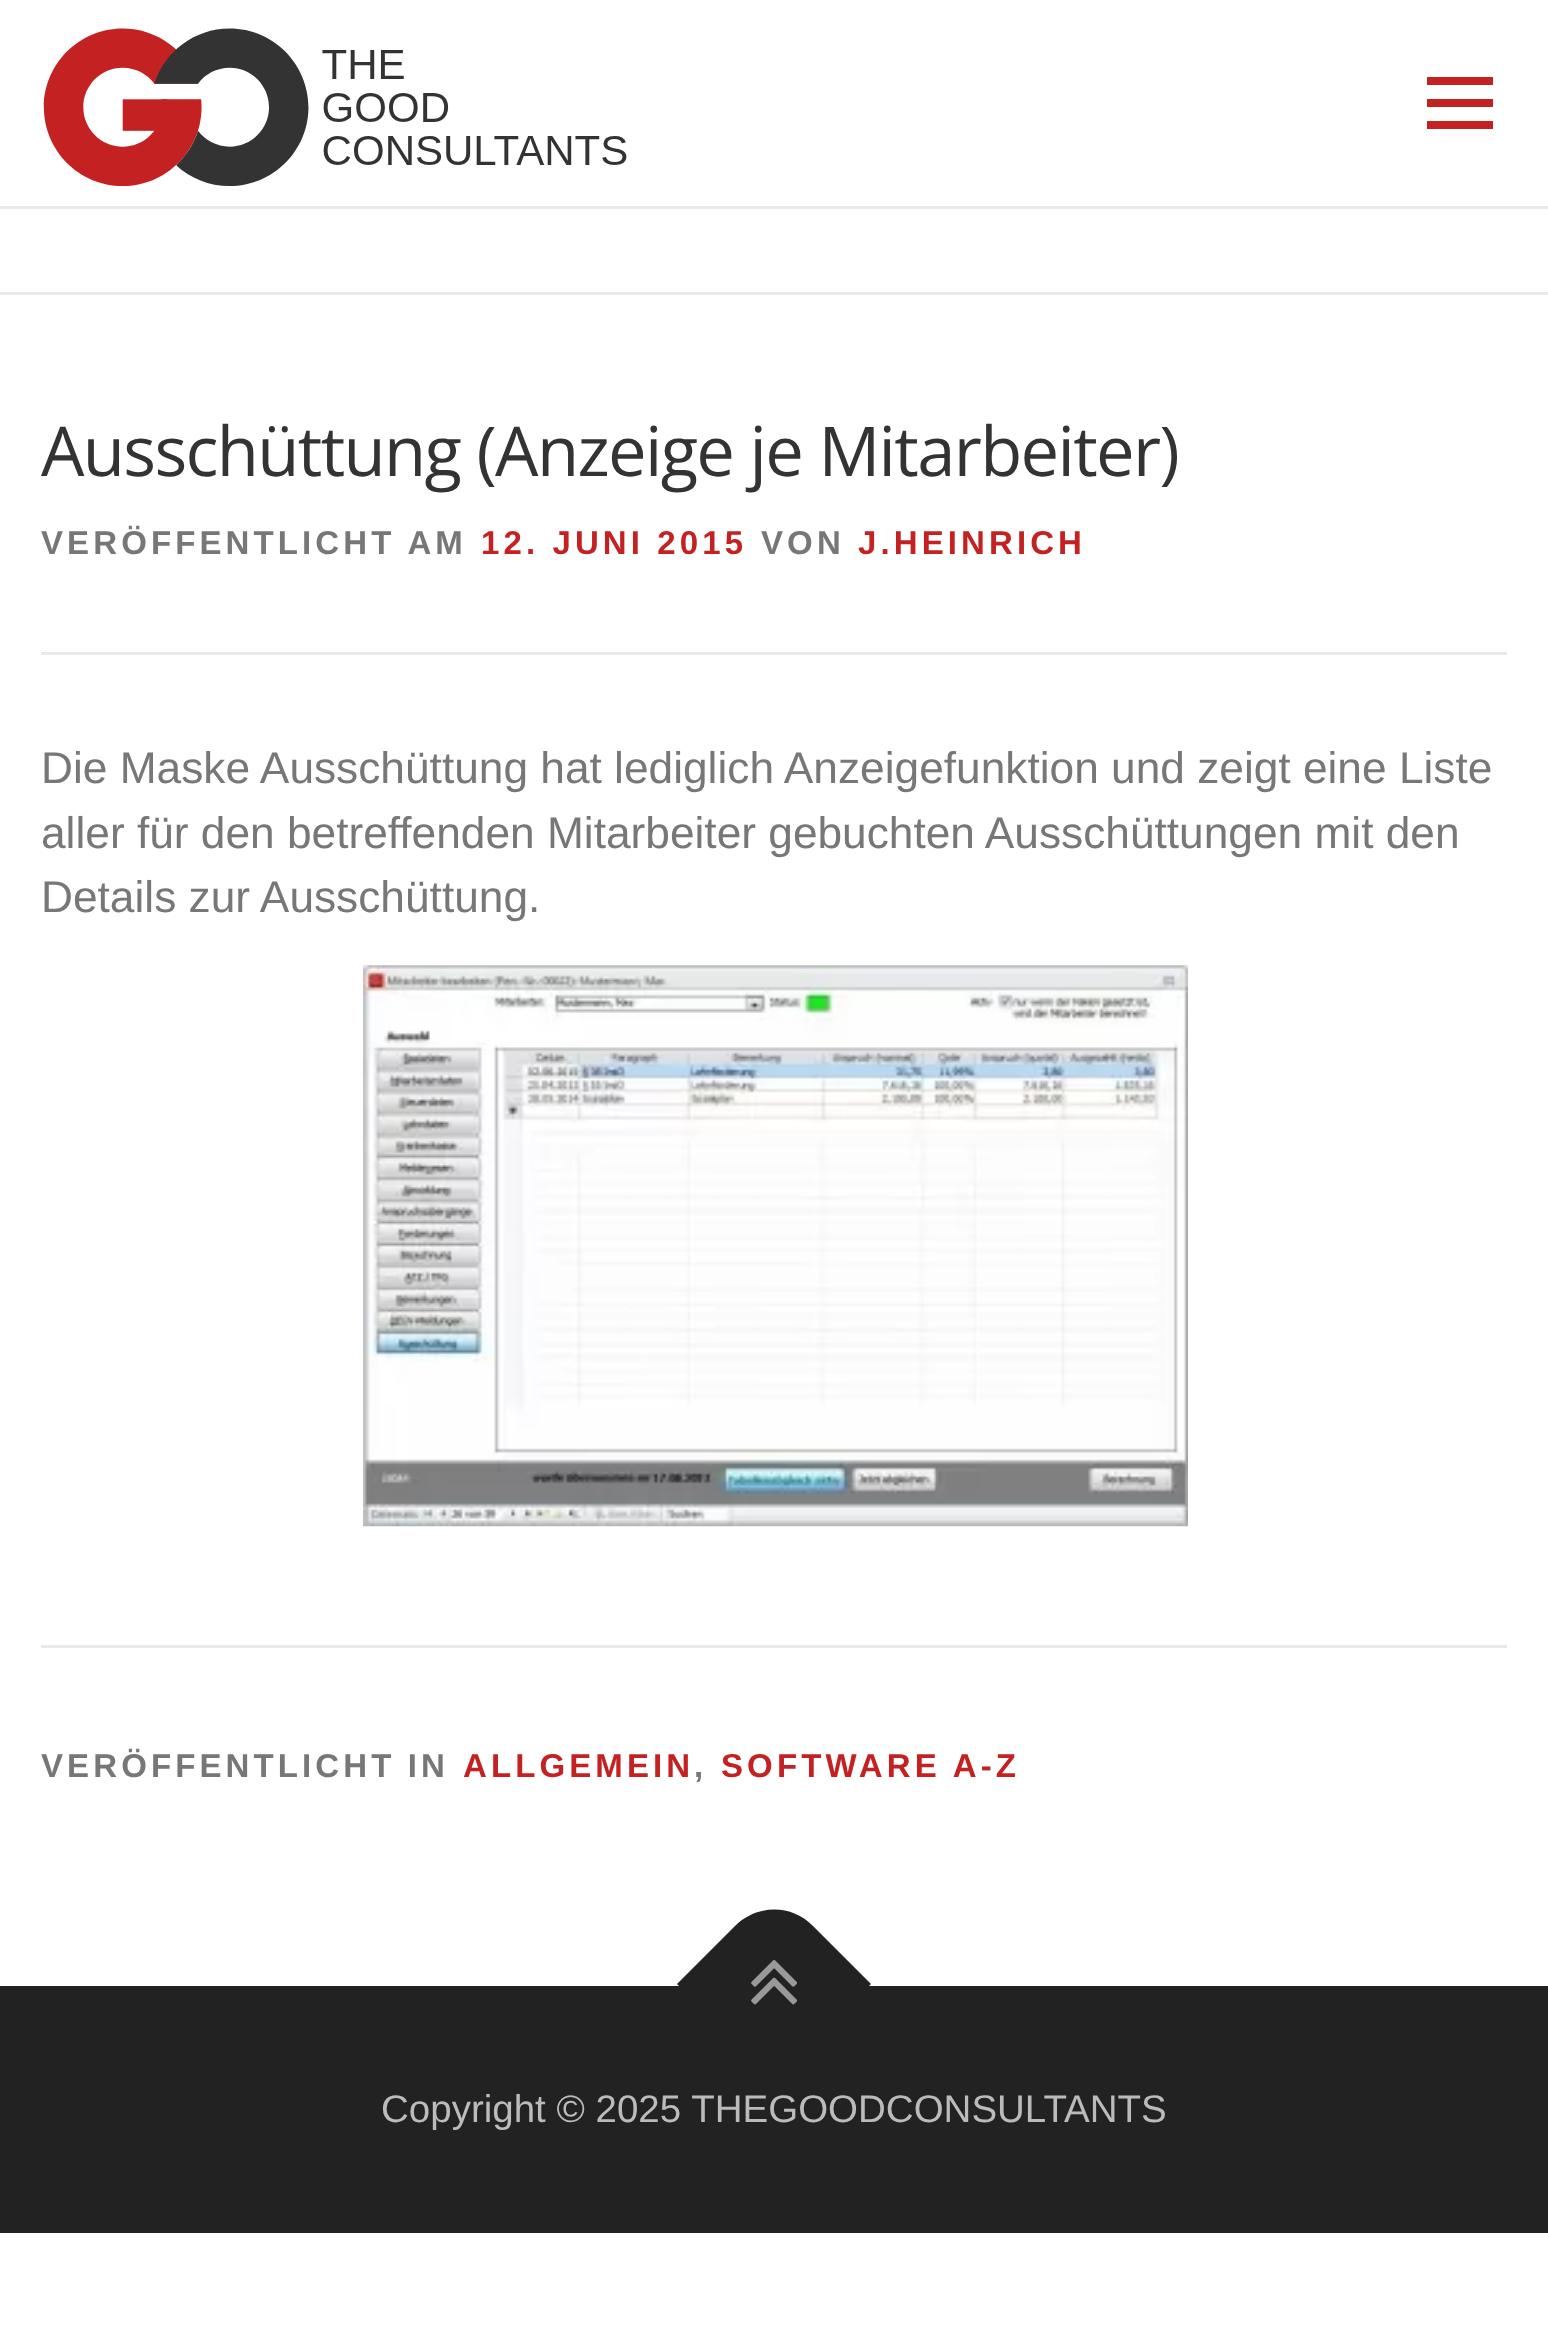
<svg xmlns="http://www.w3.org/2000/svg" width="1548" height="2335">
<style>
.a{font:68.75px Open Sans;letter-spacing:-1.65px;fill:#333}
.b{font:bold 33px Liberation Sans;letter-spacing:4.1px;fill:#777}
.c{font:bold 33px Liberation Sans;letter-spacing:4.1px;fill:#c42222}
.d{font:44.25px Liberation Sans;fill:#777}
.e{font:38.5px Liberation Sans;fill:#bbb}
</style>
<rect width="100%" height="100%" fill="#fff"/>
<image href="1.png" x="43" y="28" width="584" height="158"/>
<path fill="#c42222" d="M1427 99h66v8H1427z"/>
<path fill="#c42222" d="M1427 77h66v8H1427z"/>
<path fill="#c42222" d="M1427 121h66v8H1427z"/>
<path fill="#e9e9e9" d="M0 206h1548v3H0z"/>
<path fill="#e9e9e9" d="M0 292h1548v3H0z"/>
<path fill="#e9e9e9" d="M41 652h1466v3H41z"/>
<image href="2.png" x="363" y="965" width="825" height="562"/>
<path fill="#e9e9e9" d="M41 1645h1466v3H41z"/>
<path fill="#222" d="M0 1986h1548v247H0z"/>
<path fill="#222" d="M677 1984l58-58c22-22 57-22 78 0l58 58l-97 97z"/>
<image href="3.png" x="751" y="1960" width="47" height="45"/>
<text class="a" x="41" y="476">Ausschüttung (Anzeige je Mitarbeiter)</text>
<text class="b" x="41" y="554">VERÖFFENTLICHT AM</text>
<text class="c" x="481" y="554">12. JUNI 2015</text>
<text class="b" x="761" y="554">VON</text>
<text class="c" x="858" y="554">J.HEINRICH</text>
<text class="d" x="41" y="783">Die Maske Ausschüttung hat lediglich Anzeigefunktion und zeigt eine Liste</text>
<text class="d" x="41" y="848">aller für den betreffenden Mitarbeiter gebuchten Ausschüttungen mit den</text>
<text class="d" x="41" y="912">Details zur Ausschüttung.</text>
<text class="b" x="41" y="1777" word-spacing="-1">VERÖFFENTLICHT IN</text>
<text class="c" x="463" y="1777">ALLGEMEIN</text>
<text class="b" x="694" y="1777">,</text>
<text class="c" x="721" y="1777">SOFTWARE A-Z</text>
<text class="e" x="381" y="2122">Copyright © 2025 THEGOODCONSULTANTS</text>
</svg>
